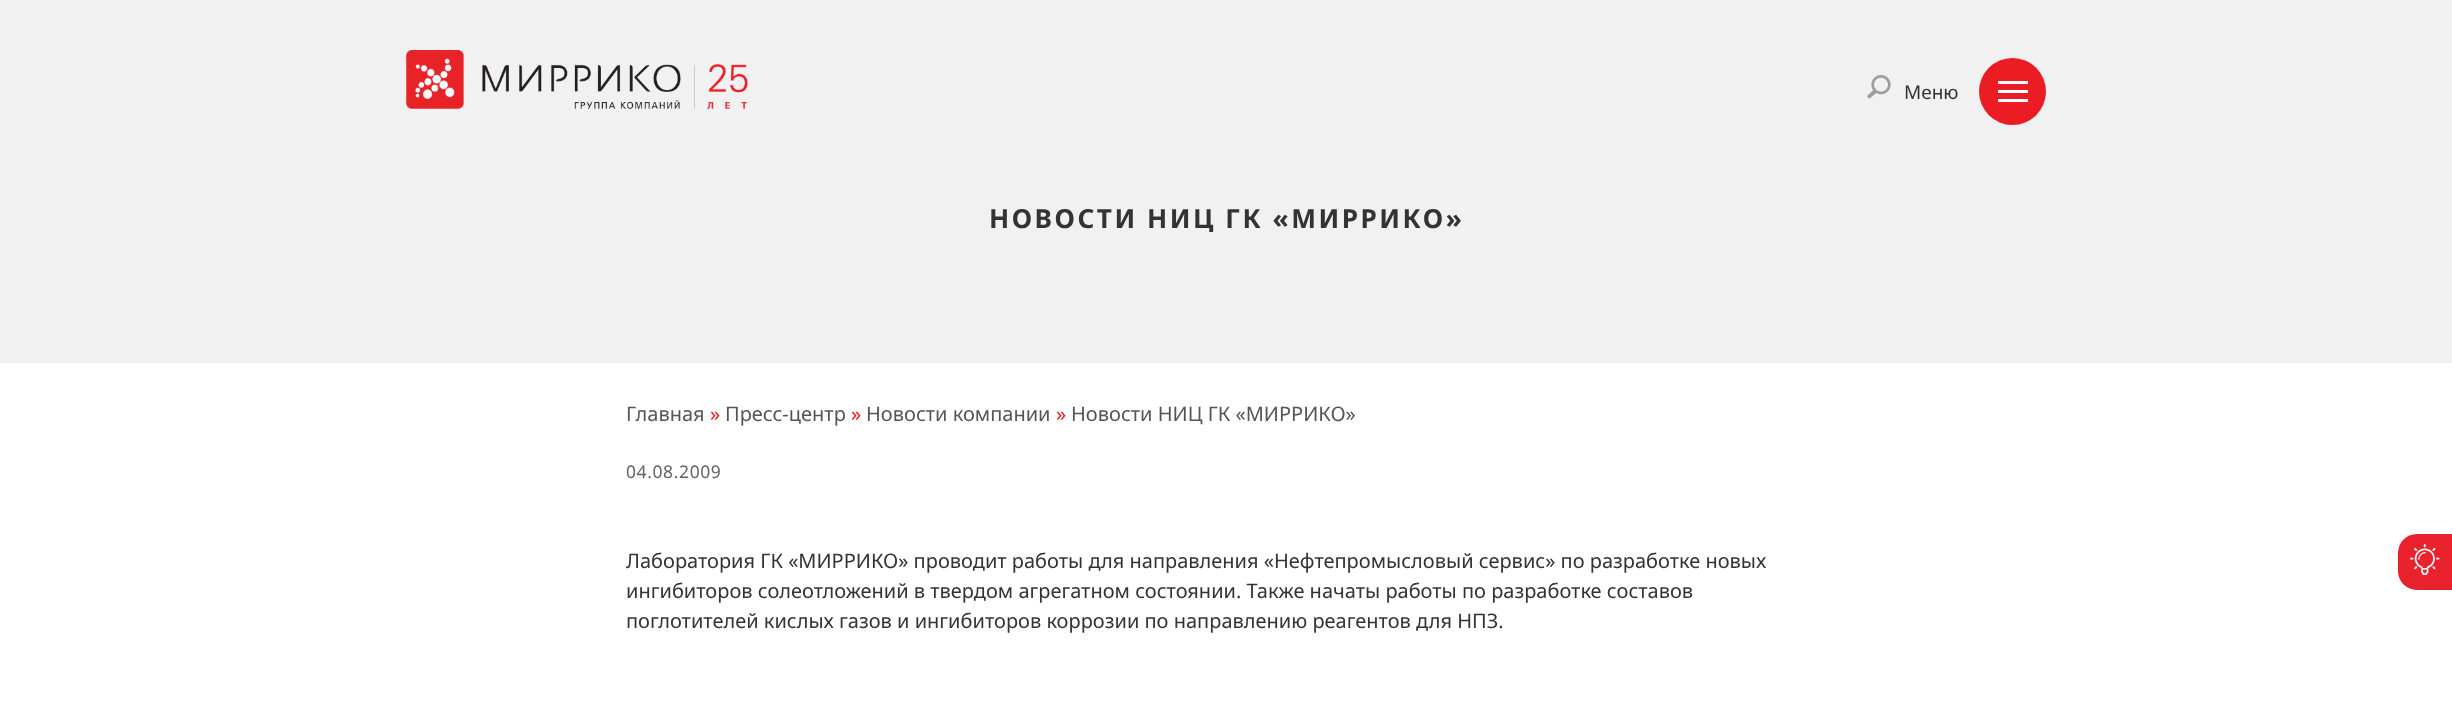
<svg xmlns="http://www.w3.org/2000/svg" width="2452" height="723">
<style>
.a{font:19px Noto Sans;fill:#333}
.b{font:bold 26.25px Noto Sans;letter-spacing:2.5px;fill:#333}
.c{font:20px Noto Sans;fill:#555}
.d{font:20px Noto Sans;fill:#ec1c24}
.e{font:17.5px Noto Sans;letter-spacing:0.6px;fill:#646464}
.f{font:20px Noto Sans;fill:#333}
</style>
<rect width="100%" height="100%" fill="#fff"/>
<path fill="#f1f1f1" d="M0 0h2452v363H0z"/>
<image href="1.png" x="406" y="50" width="342" height="59"/>
<image href="2.png" x="1867" y="75" width="24" height="24"/>
<circle fill="#ec1c24" cx="2012.5" cy="91.5" r="33.5"/>
<path fill="#fff" d="M1998 90h30v3H1998z"/>
<path fill="#fff" d="M1998 81h30v3H1998z"/>
<path fill="#fff" d="M1998 99h30v3H1998z"/>
<path fill="#e9212d" d="M2417 534h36v56h-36c-10.5 0-19-8.5-19-19v-18c0-10.5 8.5-19 19-19z"/>
<image href="3.png" x="2410" y="544" width="30" height="31"/>
<text class="a" x="1904" y="99">Меню</text>
<text class="b" x="989" y="228">НОВОСТИ НИЦ ГК «МИРРИКО»</text>
<text class="c" x="626" y="421">Главная</text>
<text class="d" x="710" y="421">»</text>
<text class="c" x="725" y="421">Пресс-центр</text>
<text class="d" x="851" y="421">»</text>
<text class="c" x="866" y="421">Новости компании</text>
<text class="d" x="1056" y="421">»</text>
<text class="c" x="1071" y="421">Новости НИЦ ГК «МИРРИКО»</text>
<text class="e" x="626" y="478">04.08.2009</text>
<text class="f" x="626" y="568">Лаборатория ГК «МИРРИКО» проводит работы для направления «Нефтепромысловый сервис» по разработке новых</text>
<text class="f" x="626" y="598">ингибиторов солеотложений в твердом агрегатном состоянии. Также начаты работы по разработке составов</text>
<text class="f" x="626" y="628">поглотителей кислых газов и ингибиторов коррозии по направлению реагентов для НПЗ.</text>
</svg>
